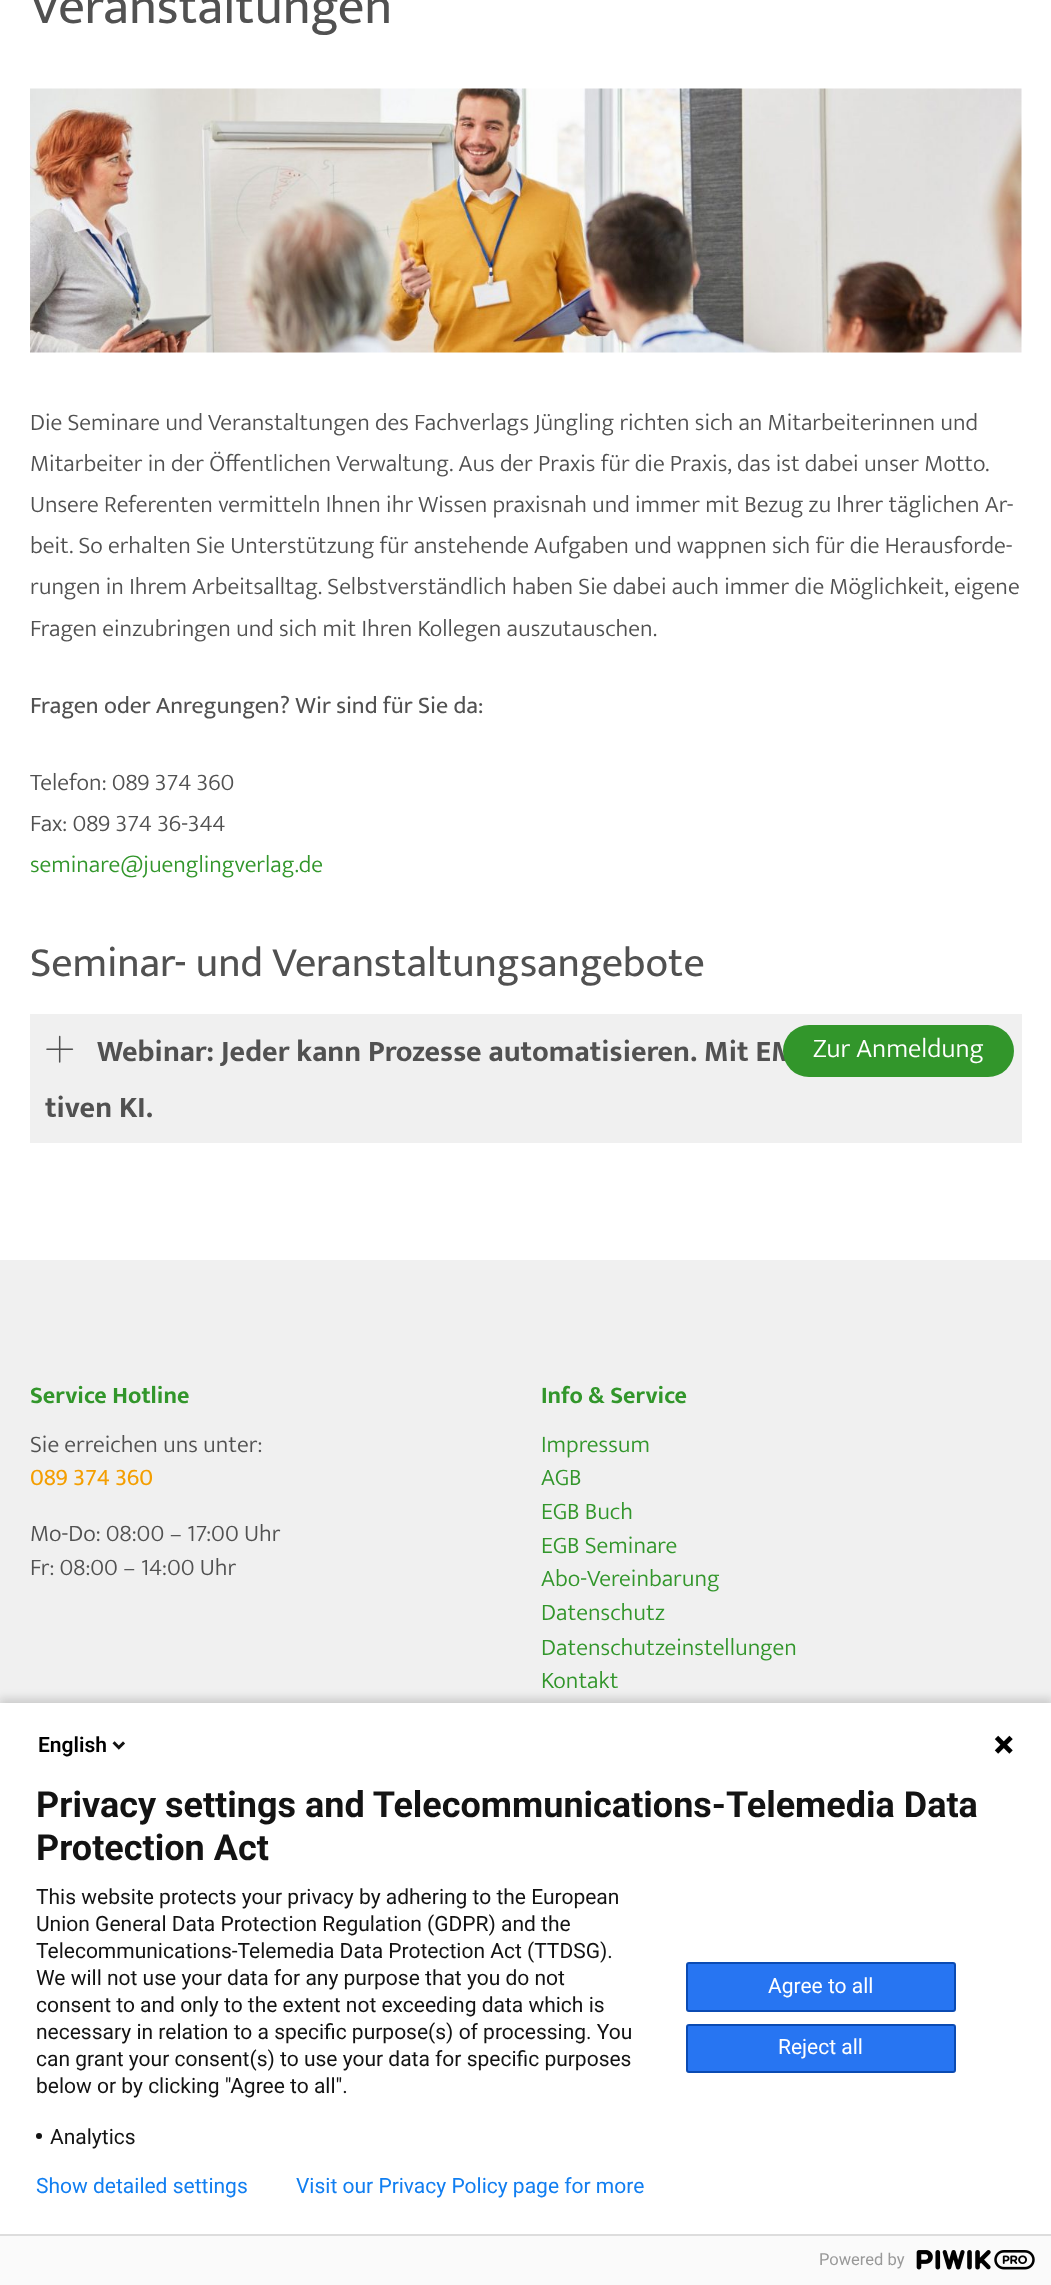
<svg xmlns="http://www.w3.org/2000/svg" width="1051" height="2285">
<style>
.a{font:52.5px Mukta;fill:#515151}
.b{font:300 24px Mukta;fill:#515151}
.c{font:24px Mukta;fill:#515151}
.d{font:300 24px Mukta;fill:#32962b}
.e{font:42px Mukta;fill:#515151}
.f{font:bold 30px Mukta;fill:#515151}
.g{font:300 27px Mukta;fill:#fff}
.h{font:bold 24px Mukta;fill:#32962b}
.i{font:24px Mukta;fill:#f49e00}
.j{font:600 21px Roboto;fill:#000}
.k{font:bold 36px Roboto;fill:#131313}
.l{font:21px Roboto;fill:#131313}
.m{font:21px Roboto;fill:#fff}
.n{font:21px Roboto;fill:#107ef1}
.o{font:16.5px Roboto;fill:#999}
</style>
<rect width="100%" height="100%" fill="#fff"/>
<image href="1.png" x="30" y="88" width="992" height="265"/>
<path fill="#f0f0f0" d="M30 1014h992v129H30z"/>
<image href="2.png" x="46" y="1035" width="28" height="28"/>
<path fill="#f0f0f0" d="M0 1260h1051v443H0z"/>
<path fill="#00000024" filter="blur(4px)" d="M-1 1698h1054v587H-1z"/>
<path fill="#fff" d="M0 1703h1051v531H0z"/>
<image href="3.png" x="112" y="1741" width="13" height="9"/>
<image href="4.png" x="994" y="1735" width="19" height="19"/>
<circle fill="#131313" cx="39" cy="2136" r="3"/>
<rect fill="#2775f2" stroke="#0b4bb3" stroke-width="2" x="687" y="1963" width="268" height="48" rx="2"/>
<rect fill="#2775f2" stroke="#0b4bb3" stroke-width="2" x="687" y="2025" width="268" height="47" rx="2"/>
<path fill="#fafafa" d="M0 2236h1051v49H0z"/>
<path fill="#ddd" d="M0 2234h1051v2H0z"/>
<image href="5.png" x="916" y="2250" width="119" height="20"/>
<text class="a" x="30" y="23">Veranstaltungen</text>
<text class="b" x="30" y="430">Die Seminare und Veranstaltungen des Fachverlags Jüngling richten sich an Mitarbeiterinnen und</text>
<text class="b" x="30" y="471">Mitarbeiter in der Öffentlichen Verwaltung. Aus der Praxis für die Praxis, das ist dabei unser Motto.</text>
<text class="b" x="30" y="512">Unsere Referenten vermitteln Ihnen ihr Wissen praxisnah und immer mit Bezug zu Ihrer täglichen Ar-</text>
<text class="b" x="30" y="553">beit. So erhalten Sie Unterstützung für anstehende Aufgaben und wappnen sich für die Herausforde-</text>
<text class="b" x="30" y="594">rungen in Ihrem Arbeitsalltag. Selbstverständlich haben Sie dabei auch immer die Möglichkeit, eigene</text>
<text class="b" x="30" y="636">Fragen einzubringen und sich mit Ihren Kollegen auszutauschen.</text>
<text class="c" x="30" y="713">Fragen oder Anregungen? Wir sind für Sie da:</text>
<text class="b" x="30" y="790">Telefon: 089 374 360</text>
<text class="b" x="30" y="831">Fax: 089 374 36-344</text>
<text class="d" x="30" y="872">seminare@juenglingverlag.de</text>
<text class="e" x="30" y="976">Seminar- und Veranstaltungsangebote</text>
<text class="f" x="97" y="1061">Webinar: Jeder kann Prozesse automatisieren. Mit EM</text>
<text class="f" x="45" y="1117">tiven KI.</text>
<rect fill="#32962b" x="783" y="1025" width="231" height="52" rx="26"/>
<text class="g" x="813" y="1057">Zur Anmeldung</text>
<text class="h" x="30" y="1403">Service Hotline</text>
<text class="b" x="30" y="1452">Sie erreichen uns unter:</text>
<text class="i" x="30" y="1485">089 374 360</text>
<text class="b" x="30" y="1541">Mo-Do: 08:00 – 17:00 Uhr</text>
<text class="b" x="30" y="1575">Fr: 08:00 – 14:00 Uhr</text>
<text class="h" x="541" y="1403">Info &amp; Service</text>
<text class="d" x="541" y="1452">Impressum</text>
<text class="d" x="541" y="1485">AGB</text>
<text class="d" x="541" y="1519">EGB Buch</text>
<text class="d" x="541" y="1553">EGB Seminare</text>
<text class="d" x="541" y="1586">Abo-Vereinbarung</text>
<text class="d" x="541" y="1620">Datenschutz</text>
<text class="d" x="541" y="1655">Datenschutzeinstellungen</text>
<text class="d" x="541" y="1688">Kontakt</text>
<text class="j" x="38" y="1752">English</text>
<text class="k" x="36" y="1817">Privacy settings and Telecommunications-Telemedia Data</text>
<text class="k" x="36" y="1860">Protection Act</text>
<text class="l" x="36" y="1904">This website protects your privacy by adhering to the European</text>
<text class="l" x="36" y="1931">Union General Data Protection Regulation (GDPR) and the</text>
<text class="l" x="36" y="1958">Telecommunications-Telemedia Data Protection Act (TTDSG).</text>
<text class="l" x="36" y="1985">We will not use your data for any purpose that you do not</text>
<text class="l" x="36" y="2012">consent to and only to the extent not exceeding data which is</text>
<text class="l" x="36" y="2039">necessary in relation to a specific purpose(s) of processing. You</text>
<text class="l" x="36" y="2066">can grant your consent(s) to use your data for specific purposes</text>
<text class="l" x="36" y="2093">below or by clicking "Agree to all".</text>
<text class="l" x="50" y="2144">Analytics</text>
<text class="m" x="768" y="1993">Agree to all</text>
<text class="m" x="778" y="2054">Reject all</text>
<text class="n" x="36" y="2193">Show detailed settings</text>
<text class="n" x="296" y="2193">Visit our Privacy Policy page for more</text>
<text class="o" x="819" y="2265">Powered by</text>
</svg>
